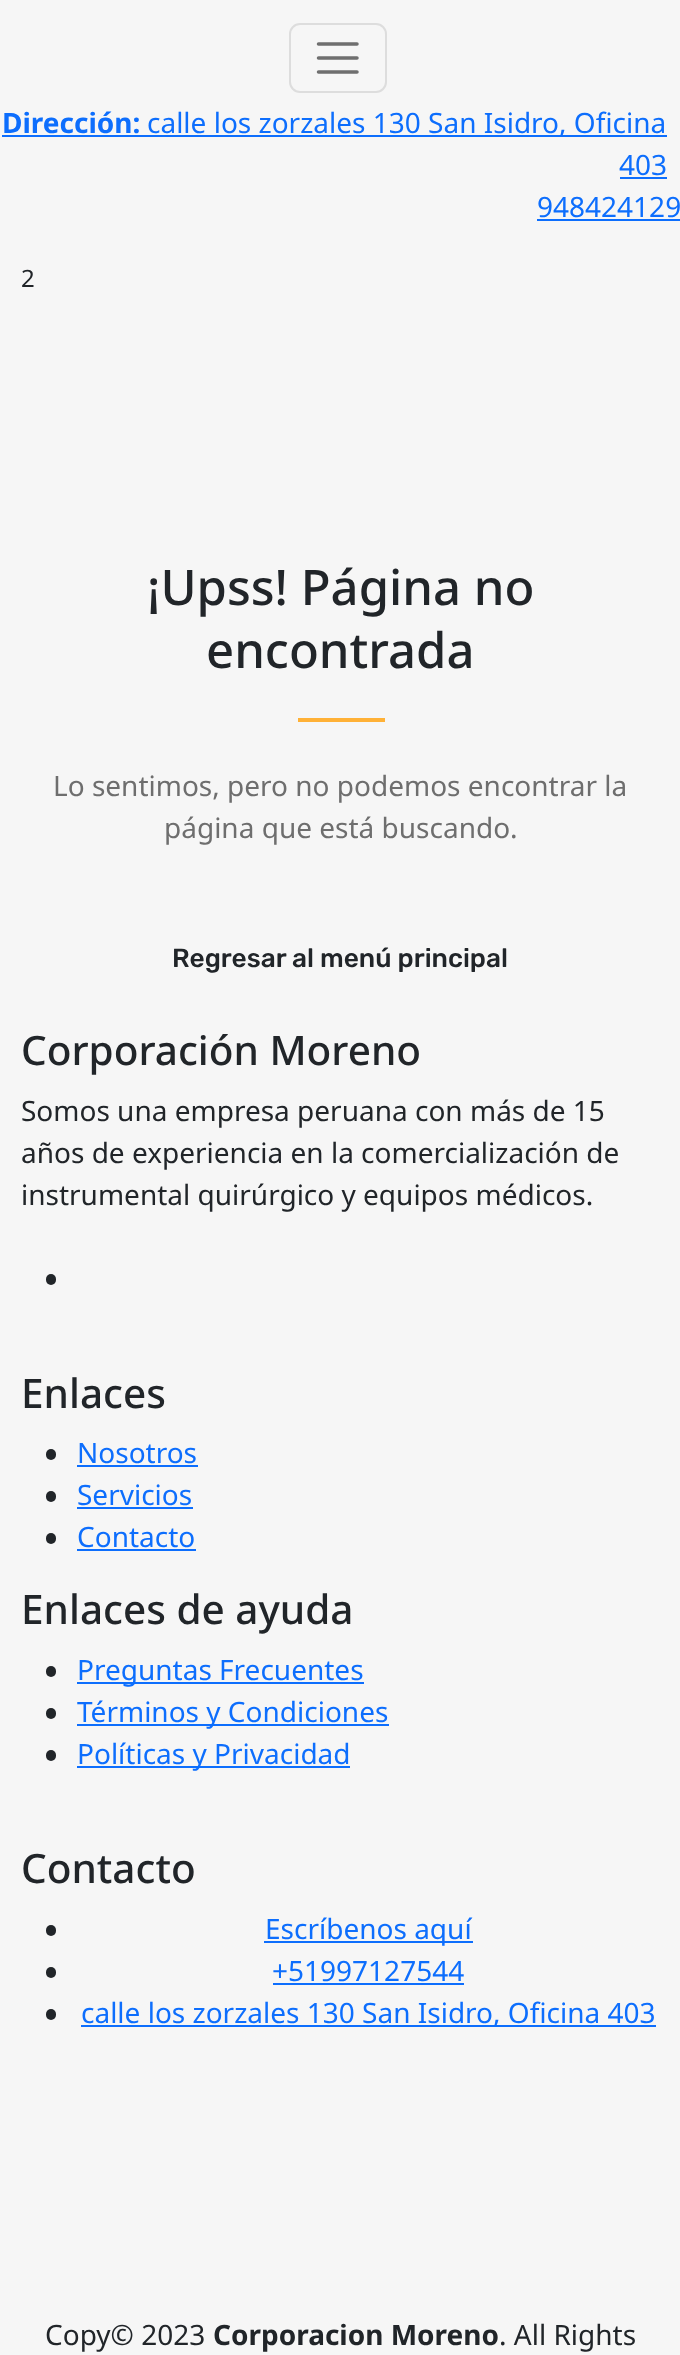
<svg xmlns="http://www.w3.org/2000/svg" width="680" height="2355">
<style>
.a{font:bold 28px Noto Sans;fill:#0d6efd}
.b{font:28px Noto Sans;fill:#0d6efd}
.c{font:24px Noto Sans;fill:#212529}
.d{font:500 49px Noto Sans;fill:#212529}
.e{font:28px Noto Sans;fill:#6e6e6e}
.f{font:500 26.25px Rubik;fill:#212529}
.g{font:500 40.5px Noto Sans;fill:#212529}
.h{font:28px Noto Sans;fill:#212529}
.i{font:bold 28px Noto Sans;fill:#212529}
</style>
<rect width="100%" height="100%" fill="#f6f6f6"/>
<rect fill="none" stroke="#ddd" stroke-width="2" x="290" y="24" width="96" height="68" rx="10"/>
<path fill="none" stroke="#6f6f6f" stroke-width="3.5" stroke-linecap="round" d="M318.5 44h38.5m-38.5 14h38.5m-38.5 14h38.5"/>
<path fill="#0d6efd" d="M2 135h665v2H2z"/>
<path fill="#0d6efd" d="M620 177h47v2H620z"/>
<path fill="#0d6efd" d="M537 219h143v2H537z"/>
<path fill="#ffb136" d="M298 718h87v4H298z"/>
<rect fill="#212529" x="46" y="1274" width="10" height="11" rx="5"/>
<rect fill="#212529" x="46" y="1449" width="10" height="11" rx="5"/>
<path fill="#0d6efd" d="M77 1465h121v2H77z"/>
<rect fill="#212529" x="46" y="1491" width="10" height="11" rx="5"/>
<path fill="#0d6efd" d="M77 1507h116v2H77z"/>
<rect fill="#212529" x="46" y="1533" width="10" height="11" rx="5"/>
<path fill="#0d6efd" d="M77 1549h119v2H77z"/>
<rect fill="#212529" x="46" y="1666" width="10" height="11" rx="5"/>
<path fill="#0d6efd" d="M77 1682h287v2H77z"/>
<rect fill="#212529" x="46" y="1708" width="10" height="11" rx="5"/>
<path fill="#0d6efd" d="M77 1724h312v2H77z"/>
<rect fill="#212529" x="46" y="1750" width="10" height="11" rx="5"/>
<path fill="#0d6efd" d="M77 1766h273v2H77z"/>
<rect fill="#212529" x="46" y="1925" width="10" height="11" rx="5"/>
<path fill="#0d6efd" d="M264 1941h209v2H264z"/>
<rect fill="#212529" x="46" y="1967" width="10" height="11" rx="5"/>
<path fill="#0d6efd" d="M273 1983h191v2H273z"/>
<rect fill="#212529" x="46" y="2009" width="10" height="11" rx="5"/>
<path fill="#0d6efd" d="M81 2025h575v2H81z"/>
<text class="a" x="2" y="133">Dirección:</text>
<text class="b" x="147" y="133">calle los zorzales 130 San Isidro, Oficina</text>
<text class="b" x="619" y="175">403</text>
<text class="b" x="537" y="217">948424129</text>
<text class="c" x="21" y="287">2</text>
<text class="d" x="147" y="605">¡Upss! Página no</text>
<text class="d" x="206" y="668">encontrada</text>
<text class="e" x="53" y="796">Lo sentimos, pero no podemos encontrar la</text>
<text class="e" x="164" y="838">página que está buscando.</text>
<text class="f" x="172" y="967">Regresar al menú principal</text>
<text class="g" x="21" y="1065">Corporación Moreno</text>
<text class="h" x="21" y="1121">Somos una empresa peruana con más de 15</text>
<text class="h" x="21" y="1163">años de experiencia en la comercialización de</text>
<text class="h" x="21" y="1205">instrumental quirúrgico y equipos médicos.</text>
<text class="g" x="21" y="1408">Enlaces</text>
<text class="b" x="77" y="1463">Nosotros</text>
<text class="b" x="77" y="1505">Servicios</text>
<text class="b" x="77" y="1547">Contacto</text>
<text class="g" x="21" y="1624">Enlaces de ayuda</text>
<text class="b" x="77" y="1680">Preguntas Frecuentes</text>
<text class="b" x="77" y="1722">Términos y Condiciones</text>
<text class="b" x="77" y="1764">Políticas y Privacidad</text>
<text class="g" x="21" y="1883">Contacto</text>
<text class="b" x="265" y="1939">Escríbenos aquí</text>
<text class="b" x="272" y="1981">+51997127544</text>
<text class="b" x="81" y="2023">calle los zorzales 130 San Isidro, Oficina 403</text>
<text class="h" x="45" y="2345">Copy© 2023</text>
<text class="i" x="213" y="2345">Corporacion Moreno</text>
<text class="h" x="499" y="2345">. All Rights</text>
</svg>
